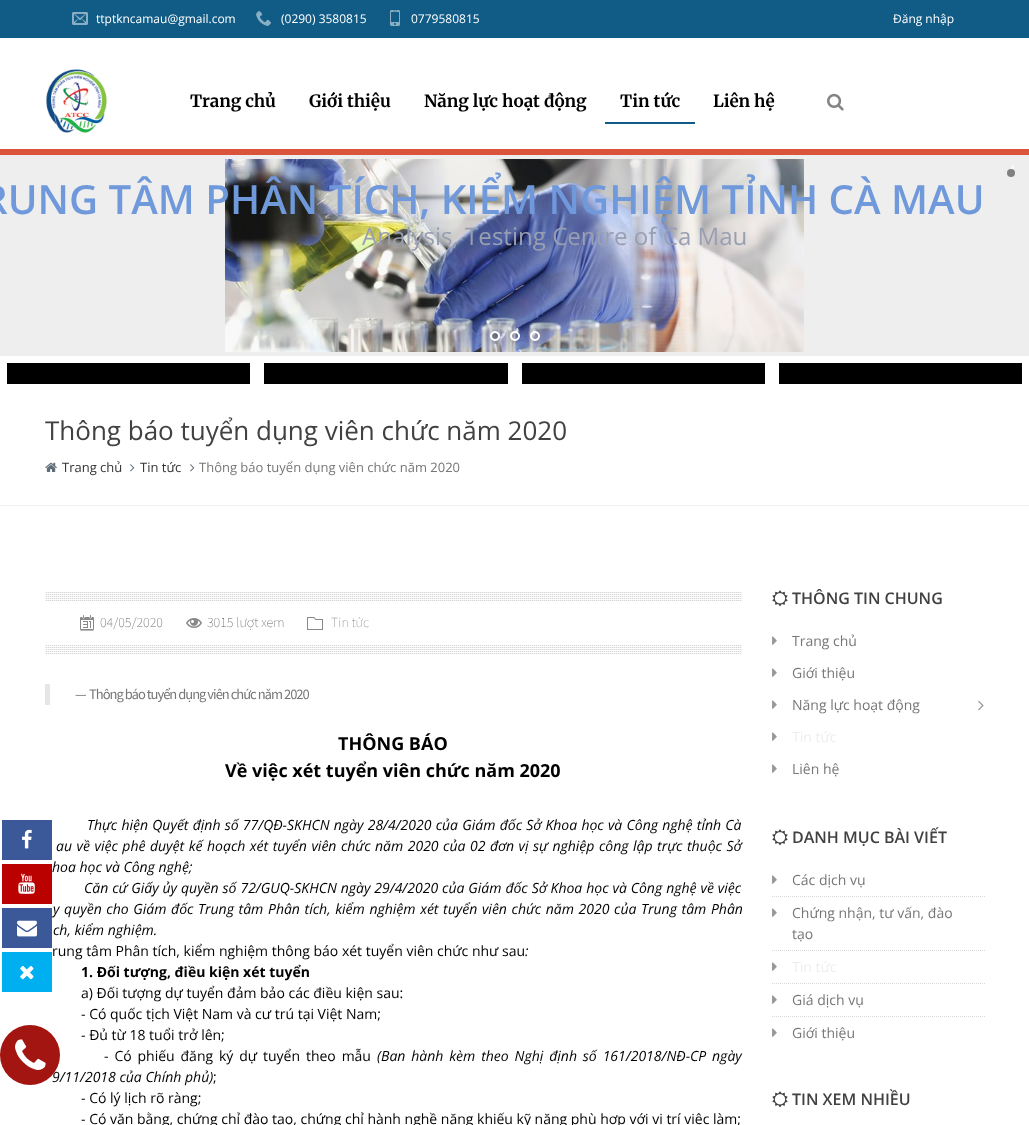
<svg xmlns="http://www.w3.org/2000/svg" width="1029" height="1125">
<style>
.a{font:12px Open Sans;fill:#fff}
.b{font:bold 17px Merriweather;fill:#000}
.c{font:600 40.2px Open Sans;fill:#6f99db}
.d{font:24.1px Open Sans;fill:#999fb2}
.e{font:26px Open Sans;fill:#414141}
.f{font:13px Open Sans;fill:#333}
.g{font:13px Open Sans;fill:#777}
.h{font:200 14px Source Sans Pro;fill:#666}
.i{font:200 14px Source Sans Pro;fill:#888}
.j{font:14.5px Source Sans Pro;letter-spacing:-1px;fill:#777}
.k{font:bold 18px Open Sans;fill:#000}
.l{font:italic 14px Open Sans;fill:#000}
.m{font:14px Open Sans;fill:#000}
.n{font:bold 14px Open Sans;fill:#000}
.o{font:600 16px Open Sans;fill:#414141}
.p{font:14px Open Sans;fill:#777}
.q{font:14px Open Sans;fill:#eee}
</style>
<defs>
<clipPath id="clip1"><path d="M1011 165h8v16H1011z"/></clipPath>
</defs>
<rect width="100%" height="100%" fill="#fff"/>
<path fill="#105c86" d="M0 0h1029v38H0z"/>
<image href="1.png" x="72" y="12" width="16" height="13"/>
<image href="2.png" x="256" y="11" width="15" height="15"/>
<image href="3.png" x="390" y="10" width="10" height="16"/>
<path fill="#da533b" d="M0 149h1029v6H0z"/>
<image href="4.png" x="46" y="69" width="61" height="65"/>
<path fill="#105c86" d="M605 122h90v2H605z"/>
<image href="5.png" x="827" y="93" width="17" height="18"/>
<path fill="#eee" d="M0 155h1029v201H0z"/>
<image href="6.png" x="225" y="159" width="579" height="193"/>
<g clip-path="url(#clip1)">
<path fill="#f9f9f9" d="M1014.5 166l-7 14c-9.5-4.5-2.5-18 7-14z"/>
</g>
<circle fill="#808080" cx="1011" cy="173" r="4"/>
<image href="7.png" x="489" y="331" width="12" height="13"/>
<image href="8.png" x="509" y="331" width="12" height="13"/>
<image href="9.png" x="529" y="331" width="12" height="13"/>
<path fill="#000" d="M7 363h243v21H7z"/>
<path fill="#000" d="M264 363h244v21H264z"/>
<path fill="#000" d="M522 363h243v21H522z"/>
<path fill="#000" d="M779 363h243v21H779z"/>
<path fill="#f0f0f0" d="M0 505h1029v1H0z"/>
<image href="10.png" x="45" y="462" width="12" height="10"/>
<image href="11.png" x="130" y="464" width="5" height="8"/>
<image href="11.png" x="190" y="464" width="5" height="8"/>
<image href="12.png" x="45" y="592" width="697" height="9"/>
<image href="13.png" x="80" y="615" width="14" height="16"/>
<image href="14.png" x="186" y="618" width="16" height="10"/>
<image href="15.png" x="307" y="617" width="16" height="13"/>
<image href="12.png" x="45" y="645" width="697" height="9"/>
<path fill="#e6e6e6" d="M45 684h5v21H45z"/>
<image href="16.png" x="772" y="590" width="16" height="17"/>
<image href="17.png" x="772" y="636" width="5" height="9"/>
<image href="17.png" x="772" y="668" width="5" height="9"/>
<image href="17.png" x="772" y="700" width="5" height="9"/>
<image href="18.png" x="978" y="700" width="6" height="11"/>
<image href="17.png" x="772" y="732" width="5" height="9"/>
<image href="17.png" x="772" y="764" width="5" height="9"/>
<image href="16.png" x="772" y="829" width="16" height="17"/>
<image href="17.png" x="772" y="875" width="5" height="9"/>
<path fill="none" stroke="#d9d9d9" stroke-dasharray="1 1" d="M772 896.5h213"/>
<image href="17.png" x="772" y="908" width="5" height="9"/>
<path fill="none" stroke="#d9d9d9" stroke-dasharray="1 1" d="M772 950.5h213"/>
<image href="17.png" x="772" y="962" width="5" height="9"/>
<path fill="none" stroke="#d9d9d9" stroke-dasharray="1 1" d="M772 983.5h213"/>
<image href="17.png" x="772" y="995" width="5" height="9"/>
<path fill="none" stroke="#d9d9d9" stroke-dasharray="1 1" d="M772 1016.5h213"/>
<image href="17.png" x="772" y="1028" width="5" height="9"/>
<image href="16.png" x="772" y="1091" width="16" height="17"/>
<path fill="#3b5998" d="M2 820h50v40H2z"/>
<image href="19.png" x="22" y="829" width="10" height="20"/>
<path fill="#00aff0" d="M2 952h50v40H2z"/>
<image href="22.png" x="20" y="966" width="14" height="14"/>
<text class="a" x="96" y="23">ttptkncamau@gmail.com</text>
<text class="a" x="281" y="23">(0290) 3580815</text>
<text class="a" x="411" y="23">0779580815</text>
<text class="a" x="893" y="23">Đăng nhập</text>
<text class="b" x="190" y="107">Trang chủ</text>
<text class="b" x="309" y="107">Giới thiệu</text>
<text class="b" x="424" y="107">Năng lực hoạt động</text>
<text class="b" x="620" y="107">Tin tức</text>
<text class="b" x="713" y="107">Liên hệ</text>
<text class="c" x="-18" y="214">RUNG TÂM PHÂN TÍCH, KIỂM NGHIỆM TỈNH CÀ MAU</text>
<text class="d" x="362" y="245">Analysis, Testing Centre of Ca Mau</text>
<text class="e" x="45" y="440">Thông báo tuyển dụng viên chức năm 2020</text>
<text class="f" x="62" y="472">Trang chủ</text>
<text class="f" x="140" y="472">Tin tức</text>
<text class="g" x="199" y="472">Thông báo tuyển dụng viên chức năm 2020</text>
<text class="h" x="100" y="627">04/05/2020</text>
<text class="h" x="207" y="627">3015 lượt xem</text>
<text class="i" x="331" y="627">Tin tức</text>
<text class="j" x="75" y="699">—</text>
<text class="j" x="89" y="699">Thông báo tuyển dụng viên chức năm 2020</text>
<text class="k" x="338" y="750">THÔNG BÁO</text>
<text class="k" x="225" y="777">Về việc xét tuyển viên chức năm 2020</text>
<text class="l" x="87" y="830" word-spacing="0.6">Thực hiện Quyết định số 77/QĐ-SKHCN ngày 28/4/2020 của Giám đốc Sở Khoa học và Công nghệ tỉnh Cà</text>
<text class="l" x="56" y="851" word-spacing="0.9">au về việc phê duyệt kế hoạch xét tuyển viên chức năm 2020 của 02 đơn vị sự nghiệp công lập trực thuộc Sở</text>
<text class="l" x="52" y="872">hoa học và Công nghệ;</text>
<text class="l" x="84" y="893" word-spacing="0.3">Căn cứ Giấy ủy quyền số 72/GUQ-SKHCN ngày 29/4/2020 của Giám đốc Sở Khoa học và Công nghệ về việc</text>
<text class="l" x="53" y="914" word-spacing="1">y quyền cho Giám đốc Trung tâm Phân tích, kiểm nghiệm xét tuyển viên chức năm 2020 của Trung tâm Phân</text>
<text class="l" x="53" y="935">ch, kiểm nghiệm.</text>
<text class="m" x="52" y="956">rung tâm Phân tích, kiểm nghiệm thông báo xét tuyển viên chức như sau</text>
<text class="l" x="525" y="956">:</text>
<text class="n" x="81" y="977">1. Đối tượng, điều kiện xét tuyển</text>
<text class="m" x="81" y="998">a) Đối tượng dự tuyển đảm bảo các điều kiện sau:</text>
<text class="m" x="81" y="1019">- Có quốc tịch Việt Nam và cư trú tại Việt Nam;</text>
<text class="m" x="81" y="1040">- Đủ từ 18 tuổi trở lên;</text>
<text class="m" x="104" y="1061" word-spacing="2.25">- Có phiếu đăng ký dự tuyển theo mẫu</text>
<text class="l" x="377" y="1061" word-spacing="2.25">(Ban hành kèm theo Nghị định số 161/2018/NĐ-CP ngày</text>
<text class="l" x="52" y="1082">9/11/2018 của Chính phủ)</text>
<text class="m" x="213" y="1082">;</text>
<text class="m" x="81" y="1103">- Có lý lịch rõ ràng;</text>
<text class="m" x="81" y="1124">- Có văn bằng, chứng chỉ đào tạo, chứng chỉ hành nghề năng khiếu kỹ năng phù hợp với vị trí việc làm;</text>
<text class="o" x="792" y="604">THÔNG TIN CHUNG</text>
<text class="p" x="792" y="646">Trang chủ</text>
<text class="p" x="792" y="678">Giới thiệu</text>
<text class="p" x="792" y="710">Năng lực hoạt động</text>
<text class="q" x="792" y="742">Tin tức</text>
<text class="p" x="792" y="774">Liên hệ</text>
<text class="o" x="792" y="843">DANH MỤC BÀI VIẾT</text>
<text class="p" x="792" y="885">Các dịch vụ</text>
<text class="p" x="792" y="918">Chứng nhận, tư vấn, đào</text>
<text class="p" x="792" y="939">tạo</text>
<text class="q" x="792" y="972">Tin tức</text>
<text class="p" x="792" y="1005">Giá dịch vụ</text>
<text class="p" x="792" y="1038">Giới thiệu</text>
<text class="o" x="792" y="1105">TIN XEM NHIỀU</text>
<path fill="#b00" d="M2 864h50v40H2z"/>
<image href="20.png" x="18" y="873" width="17" height="21"/>
<path fill="#3b5998" d="M2 908h50v40H2z"/>
<image href="21.png" x="17" y="920" width="20" height="17"/>
<circle fill="#a31510" cx="30" cy="1055" r="30"/>
<image href="23.png" x="15" y="1039" width="31" height="31"/>
</svg>
